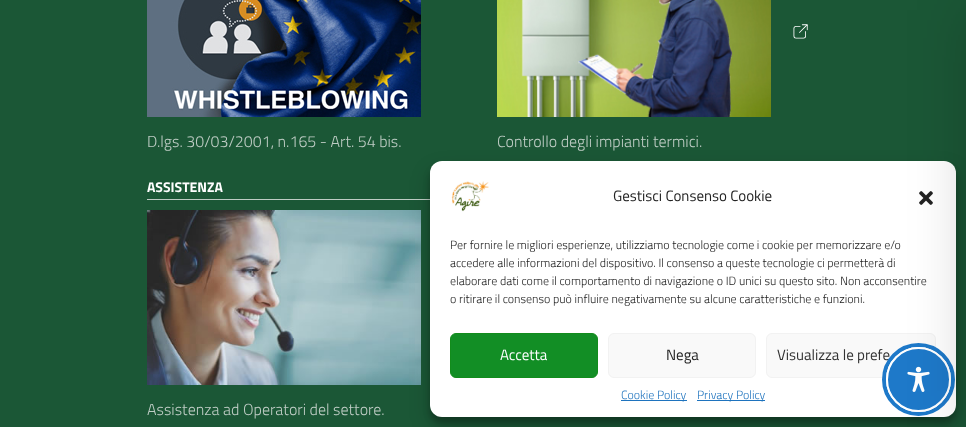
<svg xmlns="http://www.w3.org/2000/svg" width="966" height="427">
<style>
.a{font:300 16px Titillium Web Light;fill:#beccc4}
.b{font:bold 14px Titillium Web;fill:#fff}
.c{font:15px Titillium Web;fill:#222}
.d{font:300 12px Titillium Web Light;fill:#222}
.e{font:15px Titillium Web;fill:#fff}
.f{font:15px Titillium Web;fill:#333}
.g{font:300 12px Titillium Web Light;fill:#1e73be}
</style>
<rect width="100%" height="100%" fill="#1b5736"/>
<image href="1.png" x="147" y="0" width="274" height="117"/>
<image href="2.png" x="497" y="0" width="274" height="117"/>
<image href="3.png" x="793" y="24" width="15" height="15"/>
<path fill="#beccc4" d="M147 199h283v1H147z"/>
<image href="4.png" x="147" y="210" width="274" height="175"/>
<rect fill="#0000003b" filter="blur(3px)" x="430" y="167" width="526" height="256" rx="12"/>
<rect fill="#00000030" filter="blur(10px)" x="430" y="171" width="526" height="256" rx="12"/>
<rect fill="#fff" x="430" y="161" width="526" height="256" rx="12"/>
<image href="5.png" x="451" y="181" width="38" height="31"/>
<image href="6.png" x="919" y="191" width="14" height="14"/>
<rect fill="#128e25" stroke="#128c1c" x="450.5" y="333.5" width="147" height="44" rx="5.5"/>
<rect fill="#f9f9f9" stroke="#f2f2f2" x="608.5" y="333.5" width="147" height="44" rx="5.5"/>
<rect fill="#f9f9f9" stroke="#f2f2f2" x="766.5" y="333.5" width="169" height="44" rx="5.5"/>
<path fill="#1e73be" d="M621 400h66v1H621z"/>
<path fill="#1e73be" d="M697 400h68v1H697z"/>
<text class="a" x="147" y="147">D.lgs. 30/03/2001, n.165 - Art. 54 bis.</text>
<text class="a" x="497" y="147">Controllo degli impianti termici.</text>
<text class="b" x="147" y="192">ASSISTENZA</text>
<text class="a" x="147" y="415">Assistenza ad Operatori del settore.</text>
<text class="c" x="613" y="201">Gestisci Consenso Cookie</text>
<text class="d" x="450" y="249">Per fornire le migliori esperienze, utilizziamo tecnologie come i cookie per memorizzare e/o</text>
<text class="d" x="450" y="267">accedere alle informazioni del dispositivo. Il consenso a queste tecnologie ci permetterà di</text>
<text class="d" x="450" y="285">elaborare dati come il comportamento di navigazione o ID unici su questo sito. Non acconsentire</text>
<text class="d" x="450" y="303">o ritirare il consenso può influire negativamente su alcune caratteristiche e funzioni.</text>
<text class="e" x="500" y="360">Accetta</text>
<text class="c" x="666" y="360">Nega</text>
<text class="f" x="777" y="360">Visualizza le prefe</text>
<text class="g" x="621" y="399">Cookie Policy</text>
<text class="g" x="697" y="399">Privacy Policy</text>
<circle fill="none" stroke="#1e79c9" stroke-width="4" cx="918.5" cy="379.5" r="34.5"/>
<circle fill="#1e79c9" stroke="#fff" stroke-width="2" cx="918.5" cy="379.5" r="31.5"/>
<image href="7.png" x="907" y="366" width="23" height="26"/>
<path fill="#00000033" filter="blur(30px)" d="M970 10h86v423H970z"/>
</svg>
